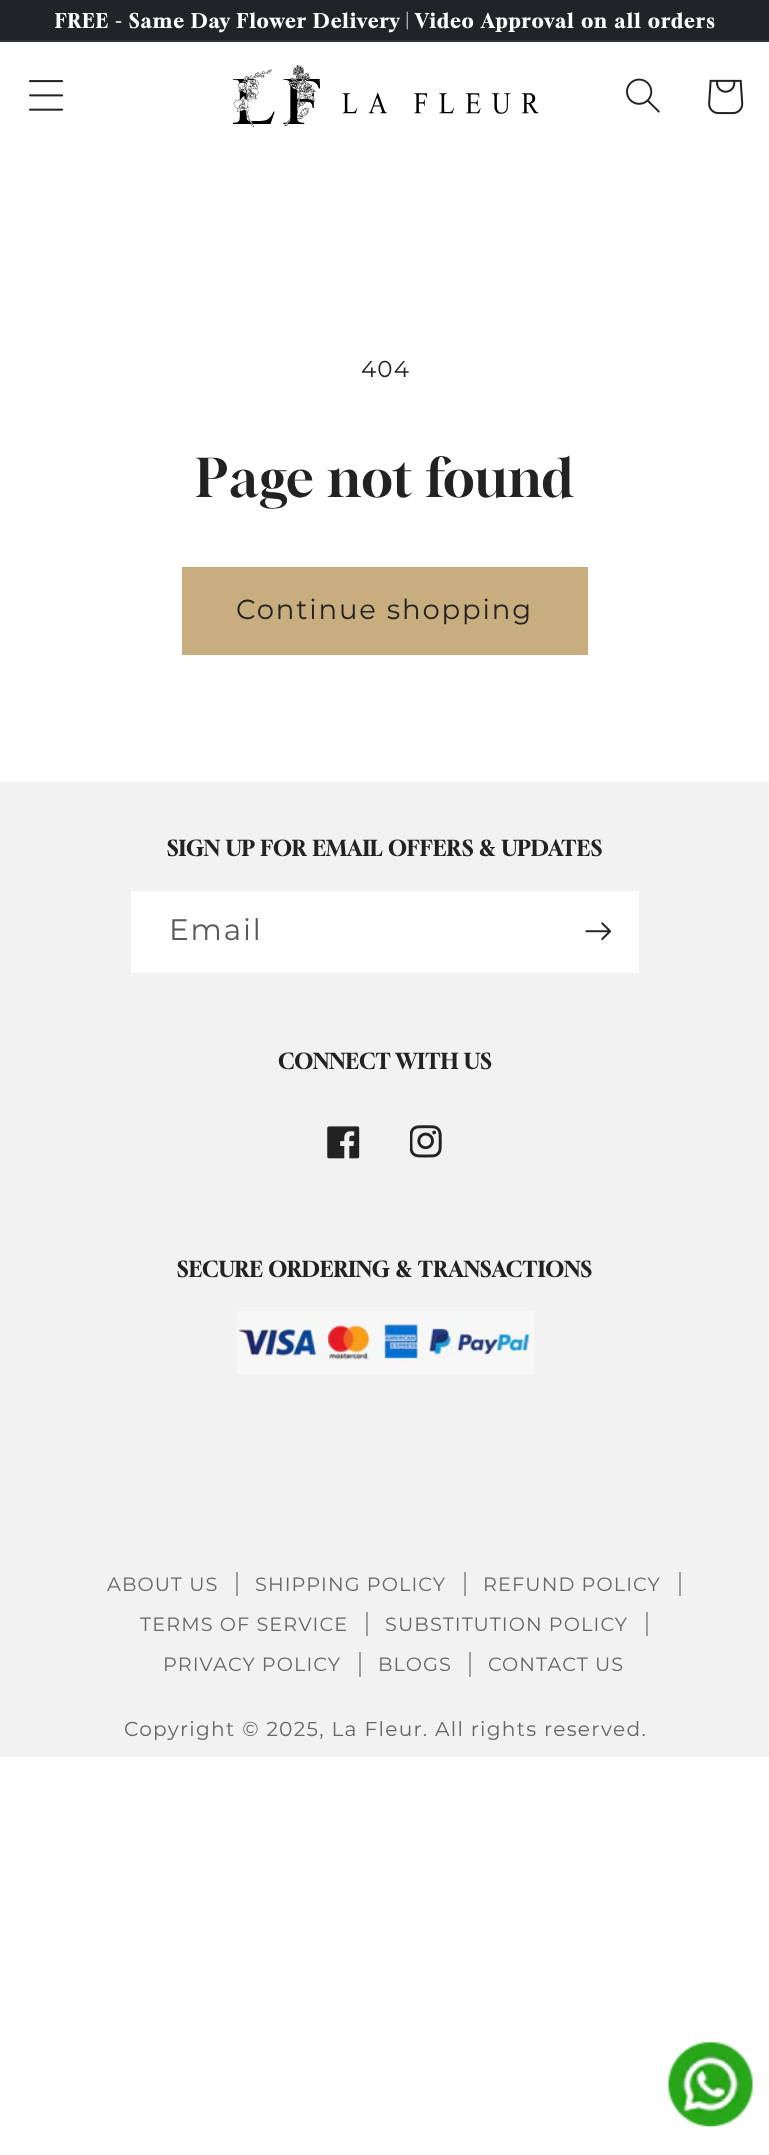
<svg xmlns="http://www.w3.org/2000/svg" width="769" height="2155">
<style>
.a{font:bold 19.25px Gloock;letter-spacing:1.85px;fill:#fff}
.b{font:23px Montserrat;letter-spacing:1.1px;fill:#222}
.c{font:52.5px Gloock;letter-spacing:1.05px;fill:#222}
.d{font:27.5px Montserrat;letter-spacing:1.85px;fill:#222}
.e{font:bold 21px Gloock;letter-spacing:1.05px;fill:#222}
.f{font:29.5px Montserrat;letter-spacing:1.85px;fill:#595959}
.g{font:19.25px Montserrat;letter-spacing:1.1px;fill:#666}
.h{font:20.2px Montserrat;letter-spacing:1.3px;fill:#666}
</style>
<rect width="100%" height="100%" fill="#fff"/>
<path fill="#212326" d="M0 0h769v40H0z"/>
<path fill="#333537" d="M0 40h769v2H0z"/>
<image href="1.png" x="29" y="80" width="35" height="31"/>
<image href="2.png" x="233" y="65" width="306" height="63"/>
<image href="3.png" x="626" y="78" width="34" height="35"/>
<image href="4.png" x="708" y="79" width="36" height="36"/>
<path fill="#c8ae7e" d="M182 567h406v88H182z"/>
<path fill="#f2f2f2" d="M0 782h769v975H0z"/>
<path fill="#fff" d="M131 891h508v82H131z"/>
<image href="5.png" x="585" y="922" width="26" height="19"/>
<image href="6.png" x="327" y="1126" width="33" height="33"/>
<image href="7.png" x="410" y="1125" width="32" height="33"/>
<path fill="#fff" d="M237 1311h297v63H237z"/>
<image href="8.png" x="236" y="1311" width="298" height="63"/>
<path fill="#9e9e9e" d="M236 1572h2v24H236z"/>
<path fill="#9e9e9e" d="M464 1572h2v24H464z"/>
<path fill="#9e9e9e" d="M679 1572h2v24H679z"/>
<path fill="#9e9e9e" d="M366 1612h2v24H366z"/>
<path fill="#9e9e9e" d="M646 1612h2v24H646z"/>
<path fill="#9e9e9e" d="M359 1652h2v25H359z"/>
<path fill="#9e9e9e" d="M469 1652h2v25H469z"/>
<image href="9.png" x="668" y="2041" width="85" height="86"/>
<text class="a" x="55" y="28">FREE - Same Day Flower Delivery | Video Approval on all orders</text>
<text class="b" x="361" y="377">404</text>
<text class="c" x="196" y="497">Page not found</text>
<text class="d" x="236" y="619">Continue shopping</text>
<text class="e" x="167" y="856">SIGN UP FOR EMAIL OFFERS &amp; UPDATES</text>
<text class="f" x="169" y="940">Email</text>
<text class="e" x="278" y="1069">CONNECT WITH US</text>
<text class="e" x="177" y="1277">SECURE ORDERING &amp; TRANSACTIONS</text>
<text class="g" x="107" y="1591">ABOUT US</text>
<text class="g" x="255" y="1591">SHIPPING POLICY</text>
<text class="g" x="483" y="1591">REFUND POLICY</text>
<text class="g" x="140" y="1631">TERMS OF SERVICE</text>
<text class="g" x="385" y="1631">SUBSTITUTION POLICY</text>
<text class="g" x="163" y="1671">PRIVACY POLICY</text>
<text class="g" x="378" y="1671">BLOGS</text>
<text class="g" x="488" y="1671">CONTACT US</text>
<text class="h" x="124" y="1736">Copyright © 2025, La Fleur. All rights reserved.</text>
</svg>
